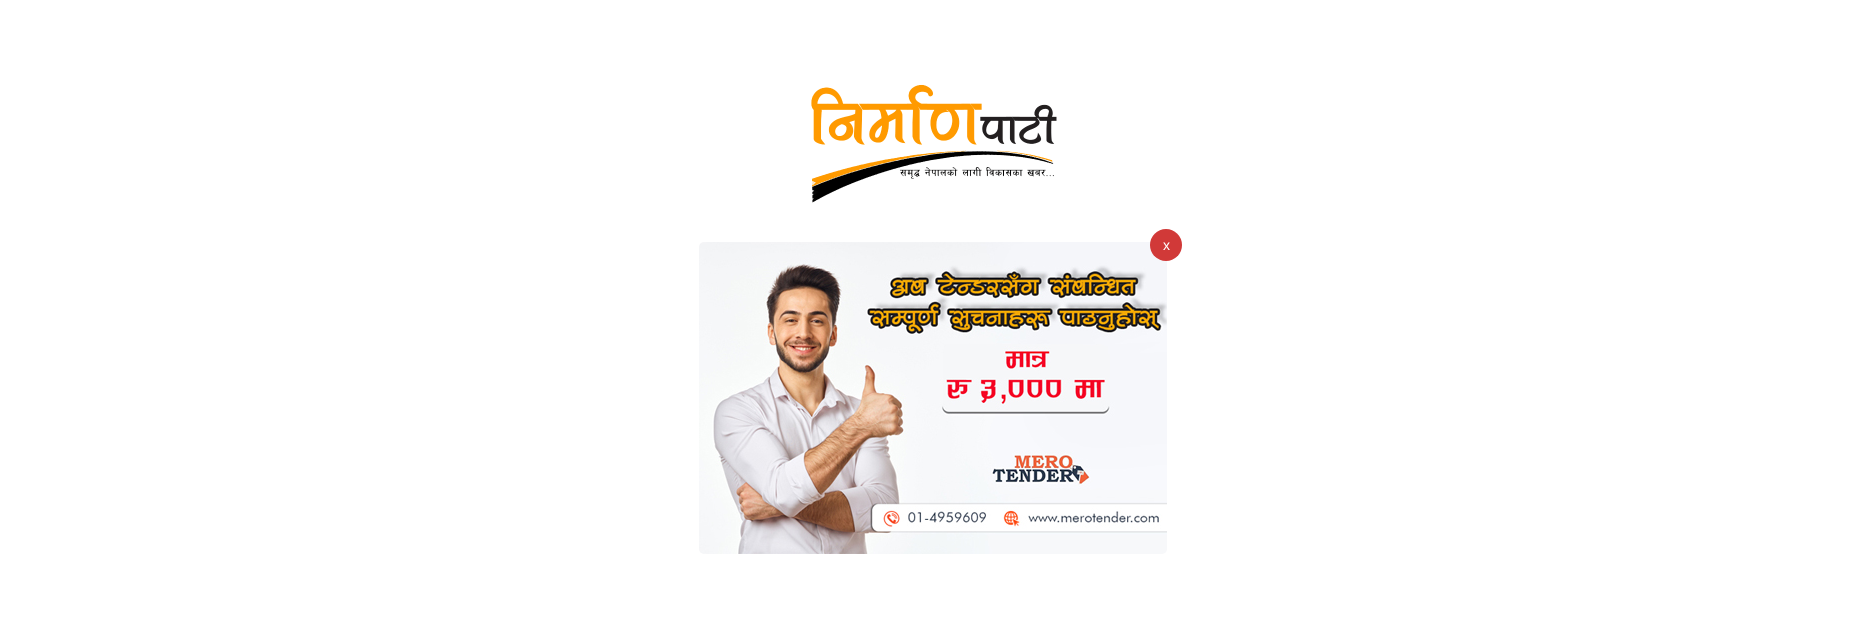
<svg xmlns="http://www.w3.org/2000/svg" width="1866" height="638">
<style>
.a{font:14px Liberation Sans;fill:#fff}
</style>
<rect width="100%" height="100%" fill="#fff"/>
<image href="1.png" x="811" y="84" width="246" height="119"/>
<image href="2.png" x="699" y="242" width="468" height="312"/>
<circle fill="#d13938" cx="1166" cy="245" r="16"/>
<text class="a" x="1163" y="250">x</text>
</svg>
